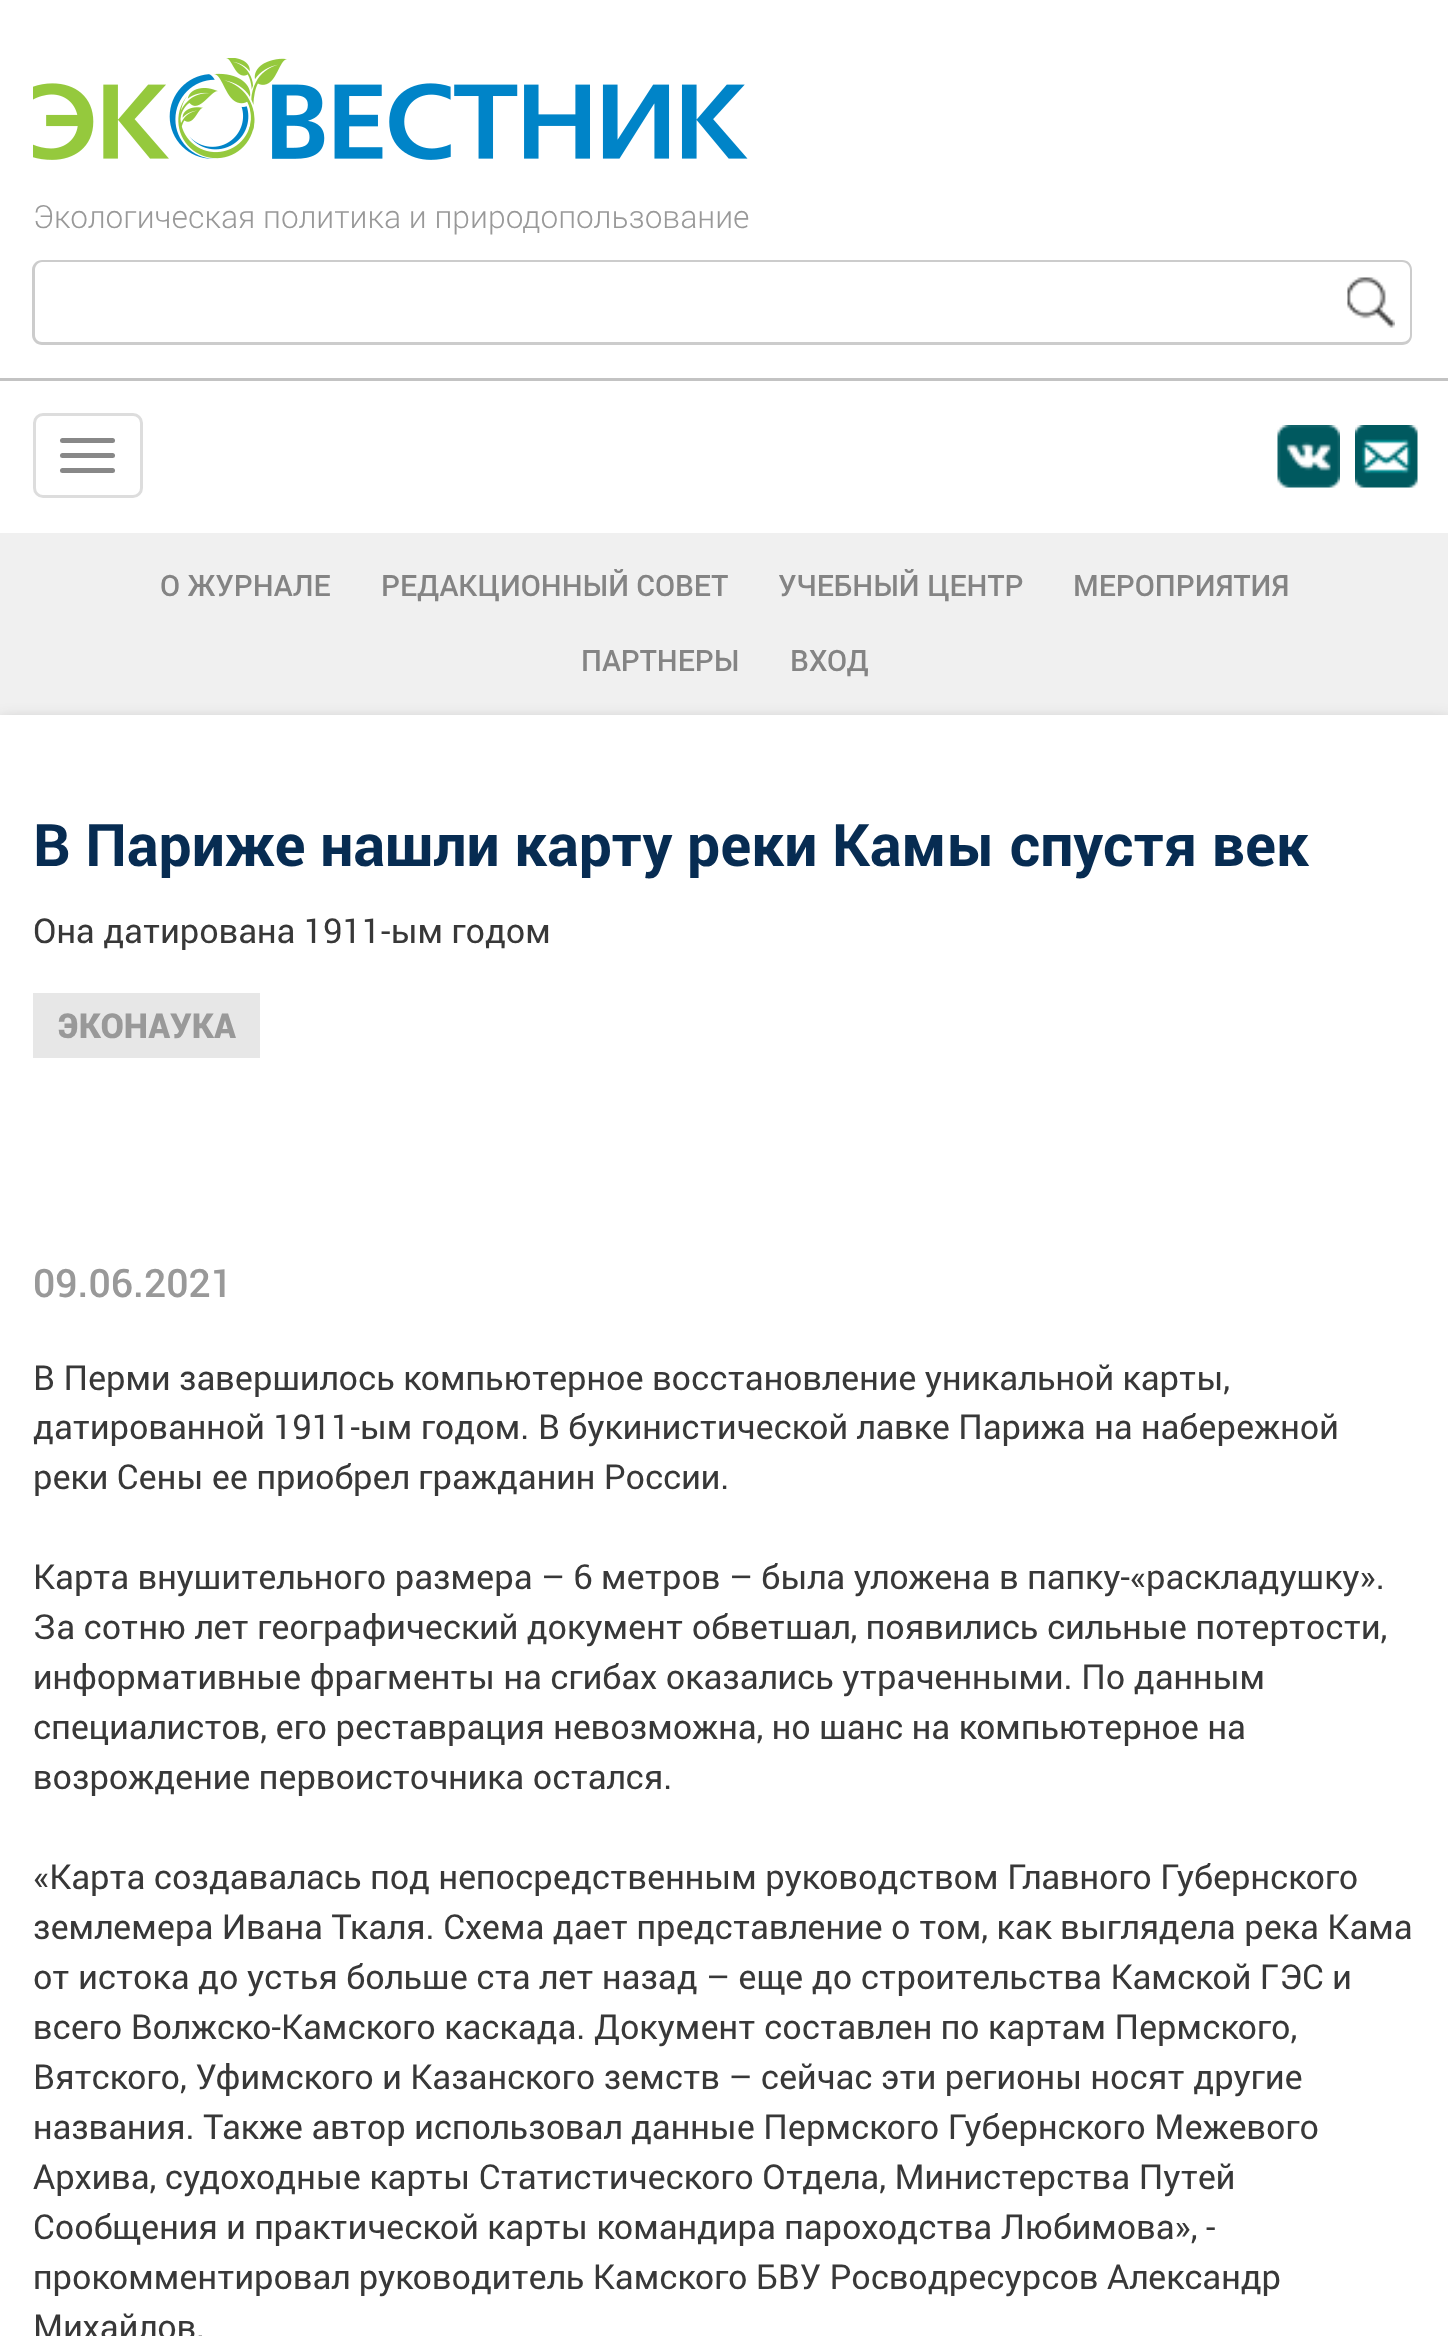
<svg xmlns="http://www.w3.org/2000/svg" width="1448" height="2336">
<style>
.a{font:300 32.5px Roboto;fill:#999}
.b{font:500 30px Roboto;fill:#848484}
.c{font:bold 60px Roboto;fill:#072c52}
.d{font:35px Roboto;fill:#383838}
.e{font:900 35px Roboto;fill:#999}
.f{font:500 40px Roboto;fill:#999}
</style>
<rect width="100%" height="100%" fill="#f0f0f0"/>
<path fill="#fff" d="M0 0h1448v533H0z"/>
<path fill="#c3c3c3" d="M0 378h1448v3H0z"/>
<image href="1.png" x="33" y="58" width="715" height="102"/>
<path fill="#ccc" fill-rule="evenodd" d="M42 260h1290v85h-1290c-5 0-10-4-10-10v-65c0-6 5-10 10-10zm0 2h1290v80h-1290c-4 0-7-3-7-7v-65c0-4 3-8 7-8z"/>
<path fill="#ccc" fill-rule="evenodd" d="M1332 260h70c6 0 10 4 10 10v65c0 6-4 10-10 10h-70zm0 2h70c5 0 8 4 8 8v65c0 4-3 7-8 7h-70z"/>
<image href="2.png" x="1347" y="277" width="48" height="51"/>
<rect fill="none" stroke="#ddd" stroke-width="3" x="34.5" y="414.5" width="107" height="82" rx="8.5"/>
<rect fill="#888" x="60" y="438" width="55" height="5" rx="2.5"/>
<rect fill="#888" x="60" y="453" width="55" height="5" rx="2.5"/>
<rect fill="#888" x="60" y="468" width="55" height="5" rx="2.5"/>
<image href="3.png" x="1277" y="425" width="63" height="63"/>
<image href="4.png" x="1355" y="425" width="63" height="63"/>
<path fill="#27242540" filter="blur(8px)" d="M0 720h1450v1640H0z"/>
<path fill="#fff" d="M0 715h1448v1621H0z"/>
<path fill="#e7e7e7" d="M33 993h227v65H33z"/>
<text class="a" x="33" y="228">Экологическая политика и природопользование</text>
<text class="b" x="160" y="596">О ЖУРНАЛЕ</text>
<text class="b" x="381" y="596">РЕДАКЦИОННЫЙ СОВЕТ</text>
<text class="b" x="778" y="596">УЧЕБНЫЙ ЦЕНТР</text>
<text class="b" x="1073" y="596">МЕРОПРИЯТИЯ</text>
<text class="b" x="581" y="671">ПАРТНЕРЫ</text>
<text class="b" x="790" y="671">ВХОД</text>
<text class="c" x="33" y="866">В Париже нашли карту реки Камы спустя век</text>
<text class="d" x="33" y="943">Она датирована 1911-ым годом</text>
<text class="e" x="58" y="1038">ЭКОНАУКА</text>
<text class="f" x="33" y="1297">09.06.2021</text>
<text class="d" x="33" y="1390">В Перми завершилось компьютерное восстановление уникальной карты,</text>
<text class="d" x="33" y="1439">датированной 1911-ым годом. В букинистической лавке Парижа на набережной</text>
<text class="d" x="33" y="1489">реки Сены ее приобрел гражданин России.</text>
<text class="d" x="33" y="1589">Карта внушительного размера – 6 метров – была уложена в папку-«раскладушку».</text>
<text class="d" x="33" y="1639">За сотню лет географический документ обветшал, появились сильные потертости,</text>
<text class="d" x="33" y="1689">информативные фрагменты на сгибах оказались утраченными. По данным</text>
<text class="d" x="33" y="1739">специалистов, его реставрация невозможна, но шанс на компьютерное на</text>
<text class="d" x="33" y="1789">возрождение первоисточника остался.</text>
<text class="d" x="33" y="1889">«Карта создавалась под непосредственным руководством Главного Губернского</text>
<text class="d" x="33" y="1939">землемера Ивана Ткаля. Схема дает представление о том, как выглядела река Кама</text>
<text class="d" x="33" y="1989">от истока до устья больше ста лет назад – еще до строительства Камской ГЭС и</text>
<text class="d" x="33" y="2039">всего Волжско-Камского каскада. Документ составлен по картам Пермского,</text>
<text class="d" x="33" y="2089">Вятского, Уфимского и Казанского земств – сейчас эти регионы носят другие</text>
<text class="d" x="33" y="2139">названия. Также автор использовал данные Пермского Губернского Межевого</text>
<text class="d" x="33" y="2189">Архива, судоходные карты Статистического Отдела, Министерства Путей</text>
<text class="d" x="33" y="2239">Сообщения и практической карты командира пароходства Любимова», -</text>
<text class="d" x="33" y="2289">прокомментировал руководитель Камского БВУ Росводресурсов Александр</text>
<text class="d" x="33" y="2339">Михайлов.</text>
</svg>
